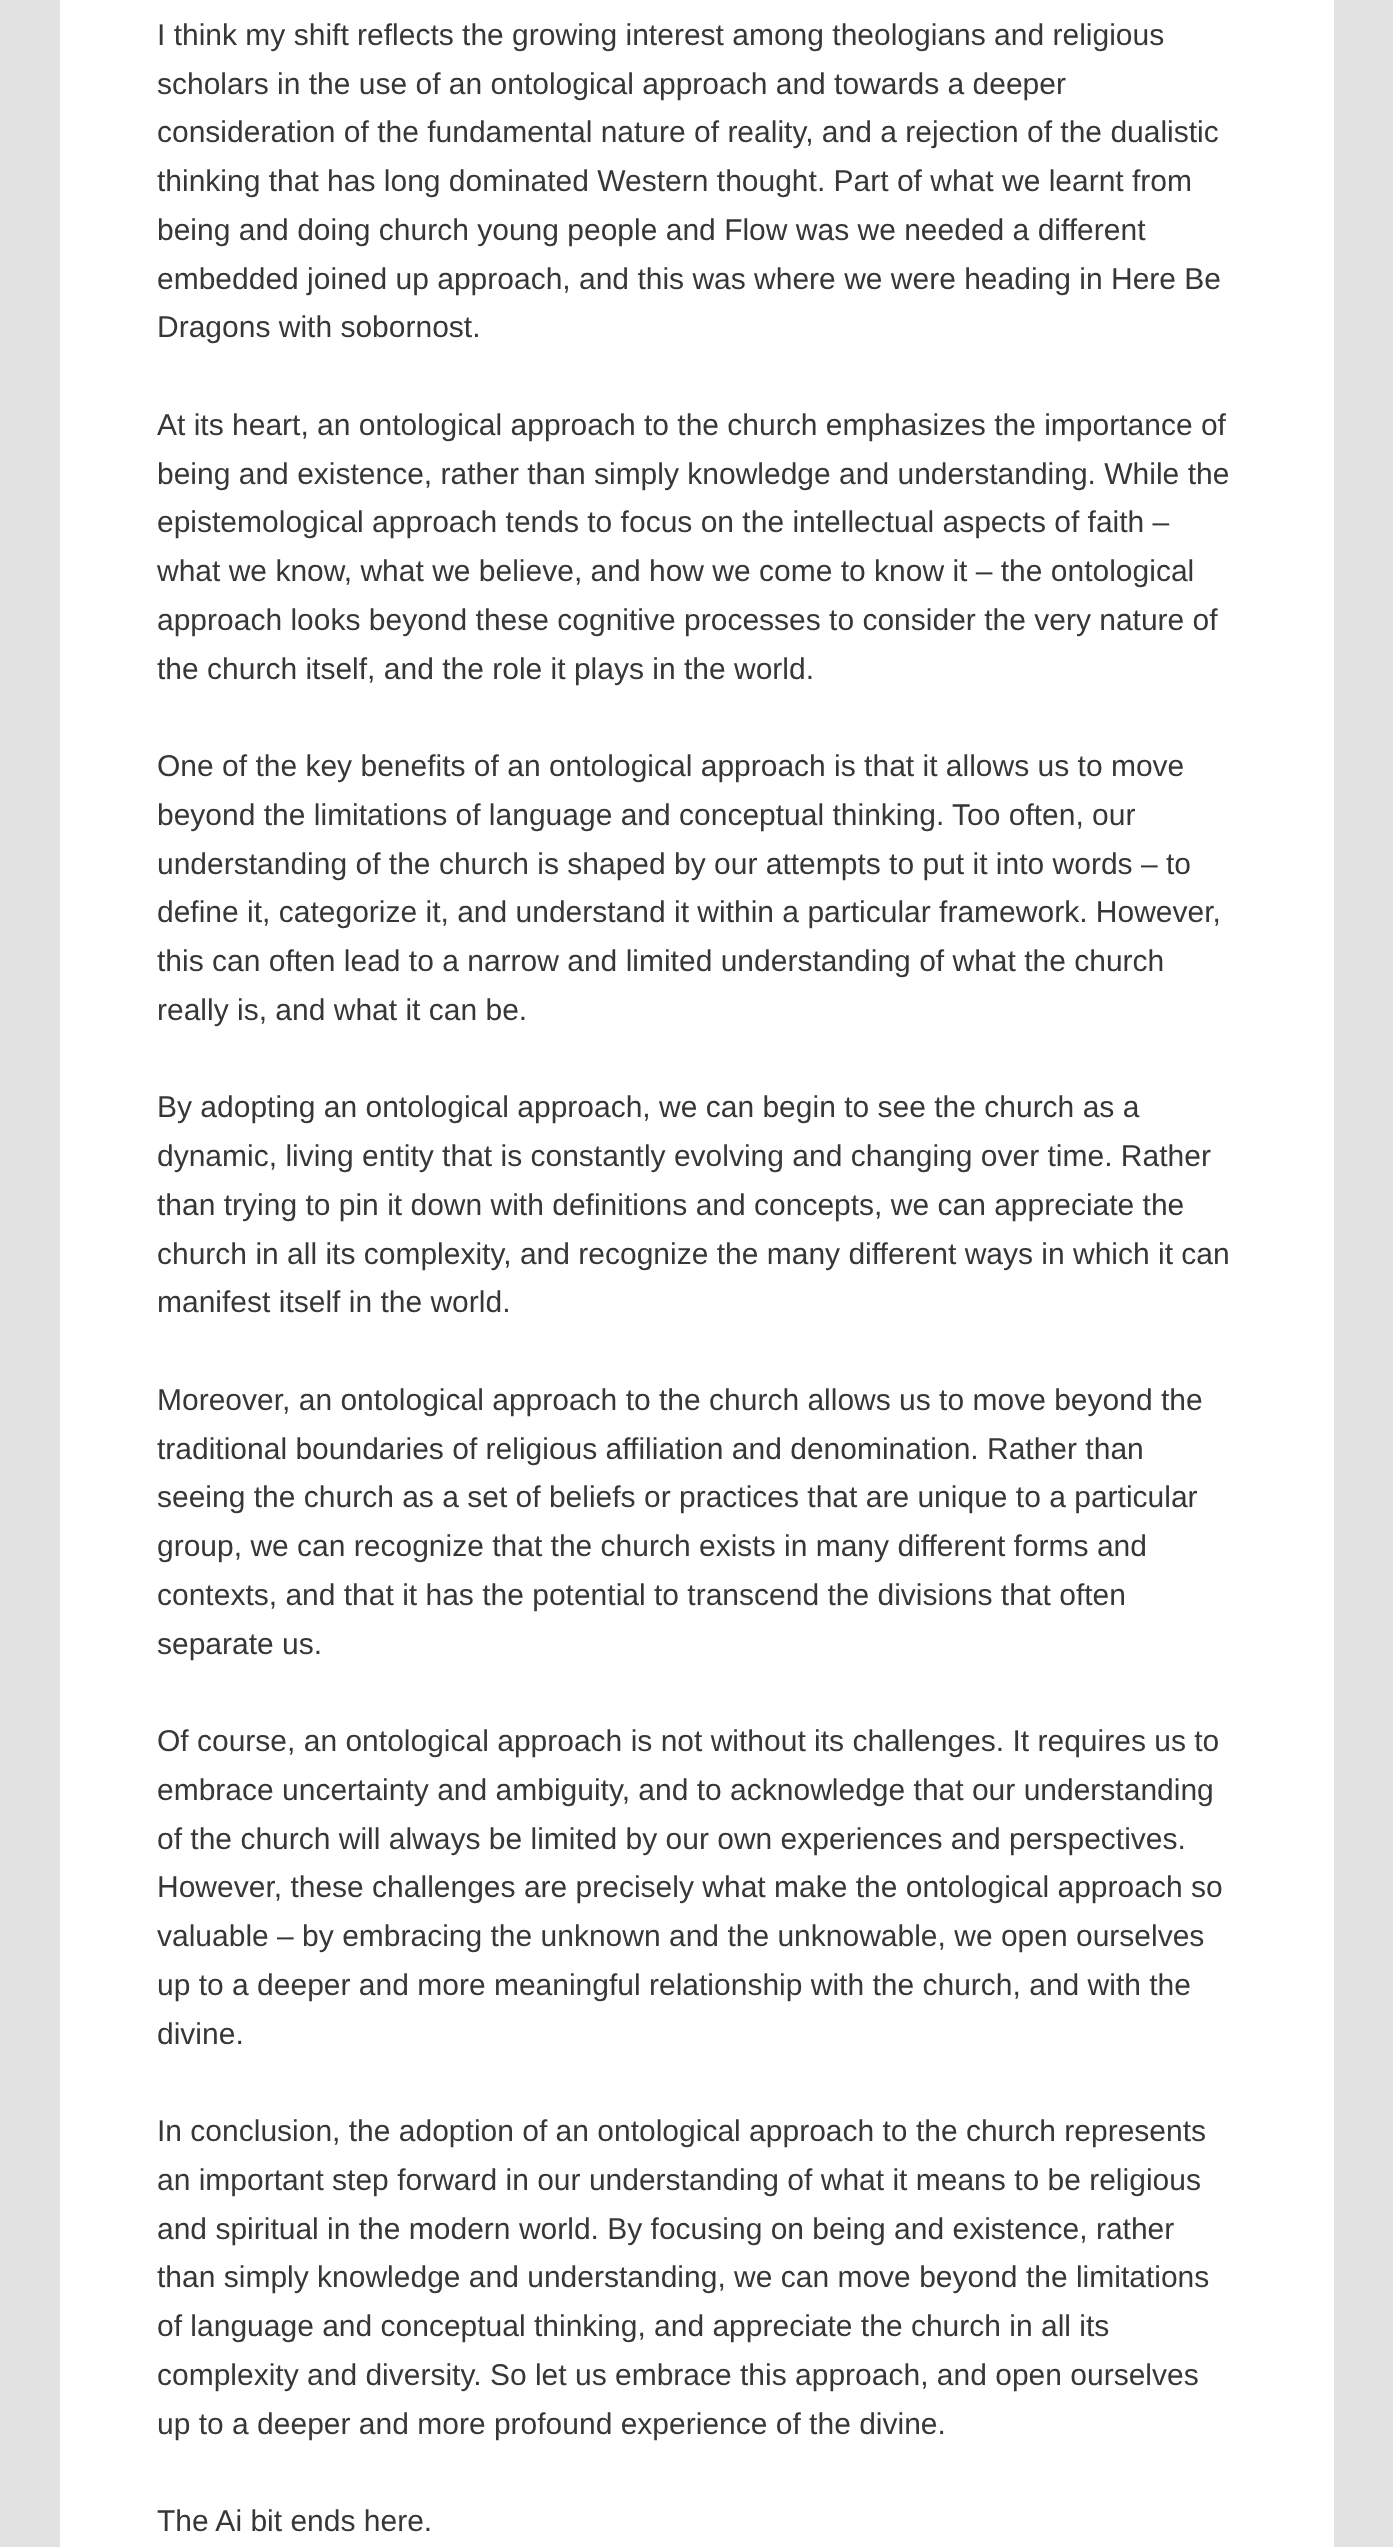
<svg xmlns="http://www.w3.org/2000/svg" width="1393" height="2547">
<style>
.a{font:30px Liberation Sans;fill:#373737}
</style>
<rect width="100%" height="100%" fill="#e2e2e2"/>
<path fill="#fff" d="M60 0h1274v2547H60z"/>
<text class="a" x="157" y="45">I think my shift reflects the growing interest among theologians and religious</text>
<text class="a" x="157" y="94">scholars in the use of an ontological approach and towards a deeper</text>
<text class="a" x="157" y="142">consideration of the fundamental nature of reality, and a rejection of the dualistic</text>
<text class="a" x="157" y="191">thinking that has long dominated Western thought. Part of what we learnt from</text>
<text class="a" x="157" y="240">being and doing church young people and Flow was we needed a different</text>
<text class="a" x="157" y="289">embedded joined up approach, and this was where we were heading in Here Be</text>
<text class="a" x="157" y="337">Dragons with sobornost.</text>
<text class="a" x="157" y="435">At its heart, an ontological approach to the church emphasizes the importance of</text>
<text class="a" x="157" y="484">being and existence, rather than simply knowledge and understanding. While the</text>
<text class="a" x="157" y="532">epistemological approach tends to focus on the intellectual aspects of faith –</text>
<text class="a" x="157" y="581">what we know, what we believe, and how we come to know it – the ontological</text>
<text class="a" x="157" y="630">approach looks beyond these cognitive processes to consider the very nature of</text>
<text class="a" x="157" y="679">the church itself, and the role it plays in the world.</text>
<text class="a" x="157" y="776">One of the key benefits of an ontological approach is that it allows us to move</text>
<text class="a" x="157" y="825">beyond the limitations of language and conceptual thinking. Too often, our</text>
<text class="a" x="157" y="874">understanding of the church is shaped by our attempts to put it into words – to</text>
<text class="a" x="157" y="922">define it, categorize it, and understand it within a particular framework. However,</text>
<text class="a" x="157" y="971">this can often lead to a narrow and limited understanding of what the church</text>
<text class="a" x="157" y="1020">really is, and what it can be.</text>
<text class="a" x="157" y="1117">By adopting an ontological approach, we can begin to see the church as a</text>
<text class="a" x="157" y="1166">dynamic, living entity that is constantly evolving and changing over time. Rather</text>
<text class="a" x="157" y="1215">than trying to pin it down with definitions and concepts, we can appreciate the</text>
<text class="a" x="157" y="1264">church in all its complexity, and recognize the many different ways in which it can</text>
<text class="a" x="157" y="1312">manifest itself in the world.</text>
<text class="a" x="157" y="1410">Moreover, an ontological approach to the church allows us to move beyond the</text>
<text class="a" x="157" y="1459">traditional boundaries of religious affiliation and denomination. Rather than</text>
<text class="a" x="157" y="1507">seeing the church as a set of beliefs or practices that are unique to a particular</text>
<text class="a" x="157" y="1556">group, we can recognize that the church exists in many different forms and</text>
<text class="a" x="157" y="1605">contexts, and that it has the potential to transcend the divisions that often</text>
<text class="a" x="157" y="1654">separate us.</text>
<text class="a" x="157" y="1751">Of course, an ontological approach is not without its challenges. It requires us to</text>
<text class="a" x="157" y="1800">embrace uncertainty and ambiguity, and to acknowledge that our understanding</text>
<text class="a" x="157" y="1849">of the church will always be limited by our own experiences and perspectives.</text>
<text class="a" x="157" y="1897">However, these challenges are precisely what make the ontological approach so</text>
<text class="a" x="157" y="1946">valuable – by embracing the unknown and the unknowable, we open ourselves</text>
<text class="a" x="157" y="1995">up to a deeper and more meaningful relationship with the church, and with the</text>
<text class="a" x="157" y="2044">divine.</text>
<text class="a" x="157" y="2141">In conclusion, the adoption of an ontological approach to the church represents</text>
<text class="a" x="157" y="2190">an important step forward in our understanding of what it means to be religious</text>
<text class="a" x="157" y="2239">and spiritual in the modern world. By focusing on being and existence, rather</text>
<text class="a" x="157" y="2287">than simply knowledge and understanding, we can move beyond the limitations</text>
<text class="a" x="157" y="2336">of language and conceptual thinking, and appreciate the church in all its</text>
<text class="a" x="157" y="2385">complexity and diversity. So let us embrace this approach, and open ourselves</text>
<text class="a" x="157" y="2434">up to a deeper and more profound experience of the divine.</text>
<text class="a" x="157" y="2531">The Ai bit ends here.</text>
</svg>
